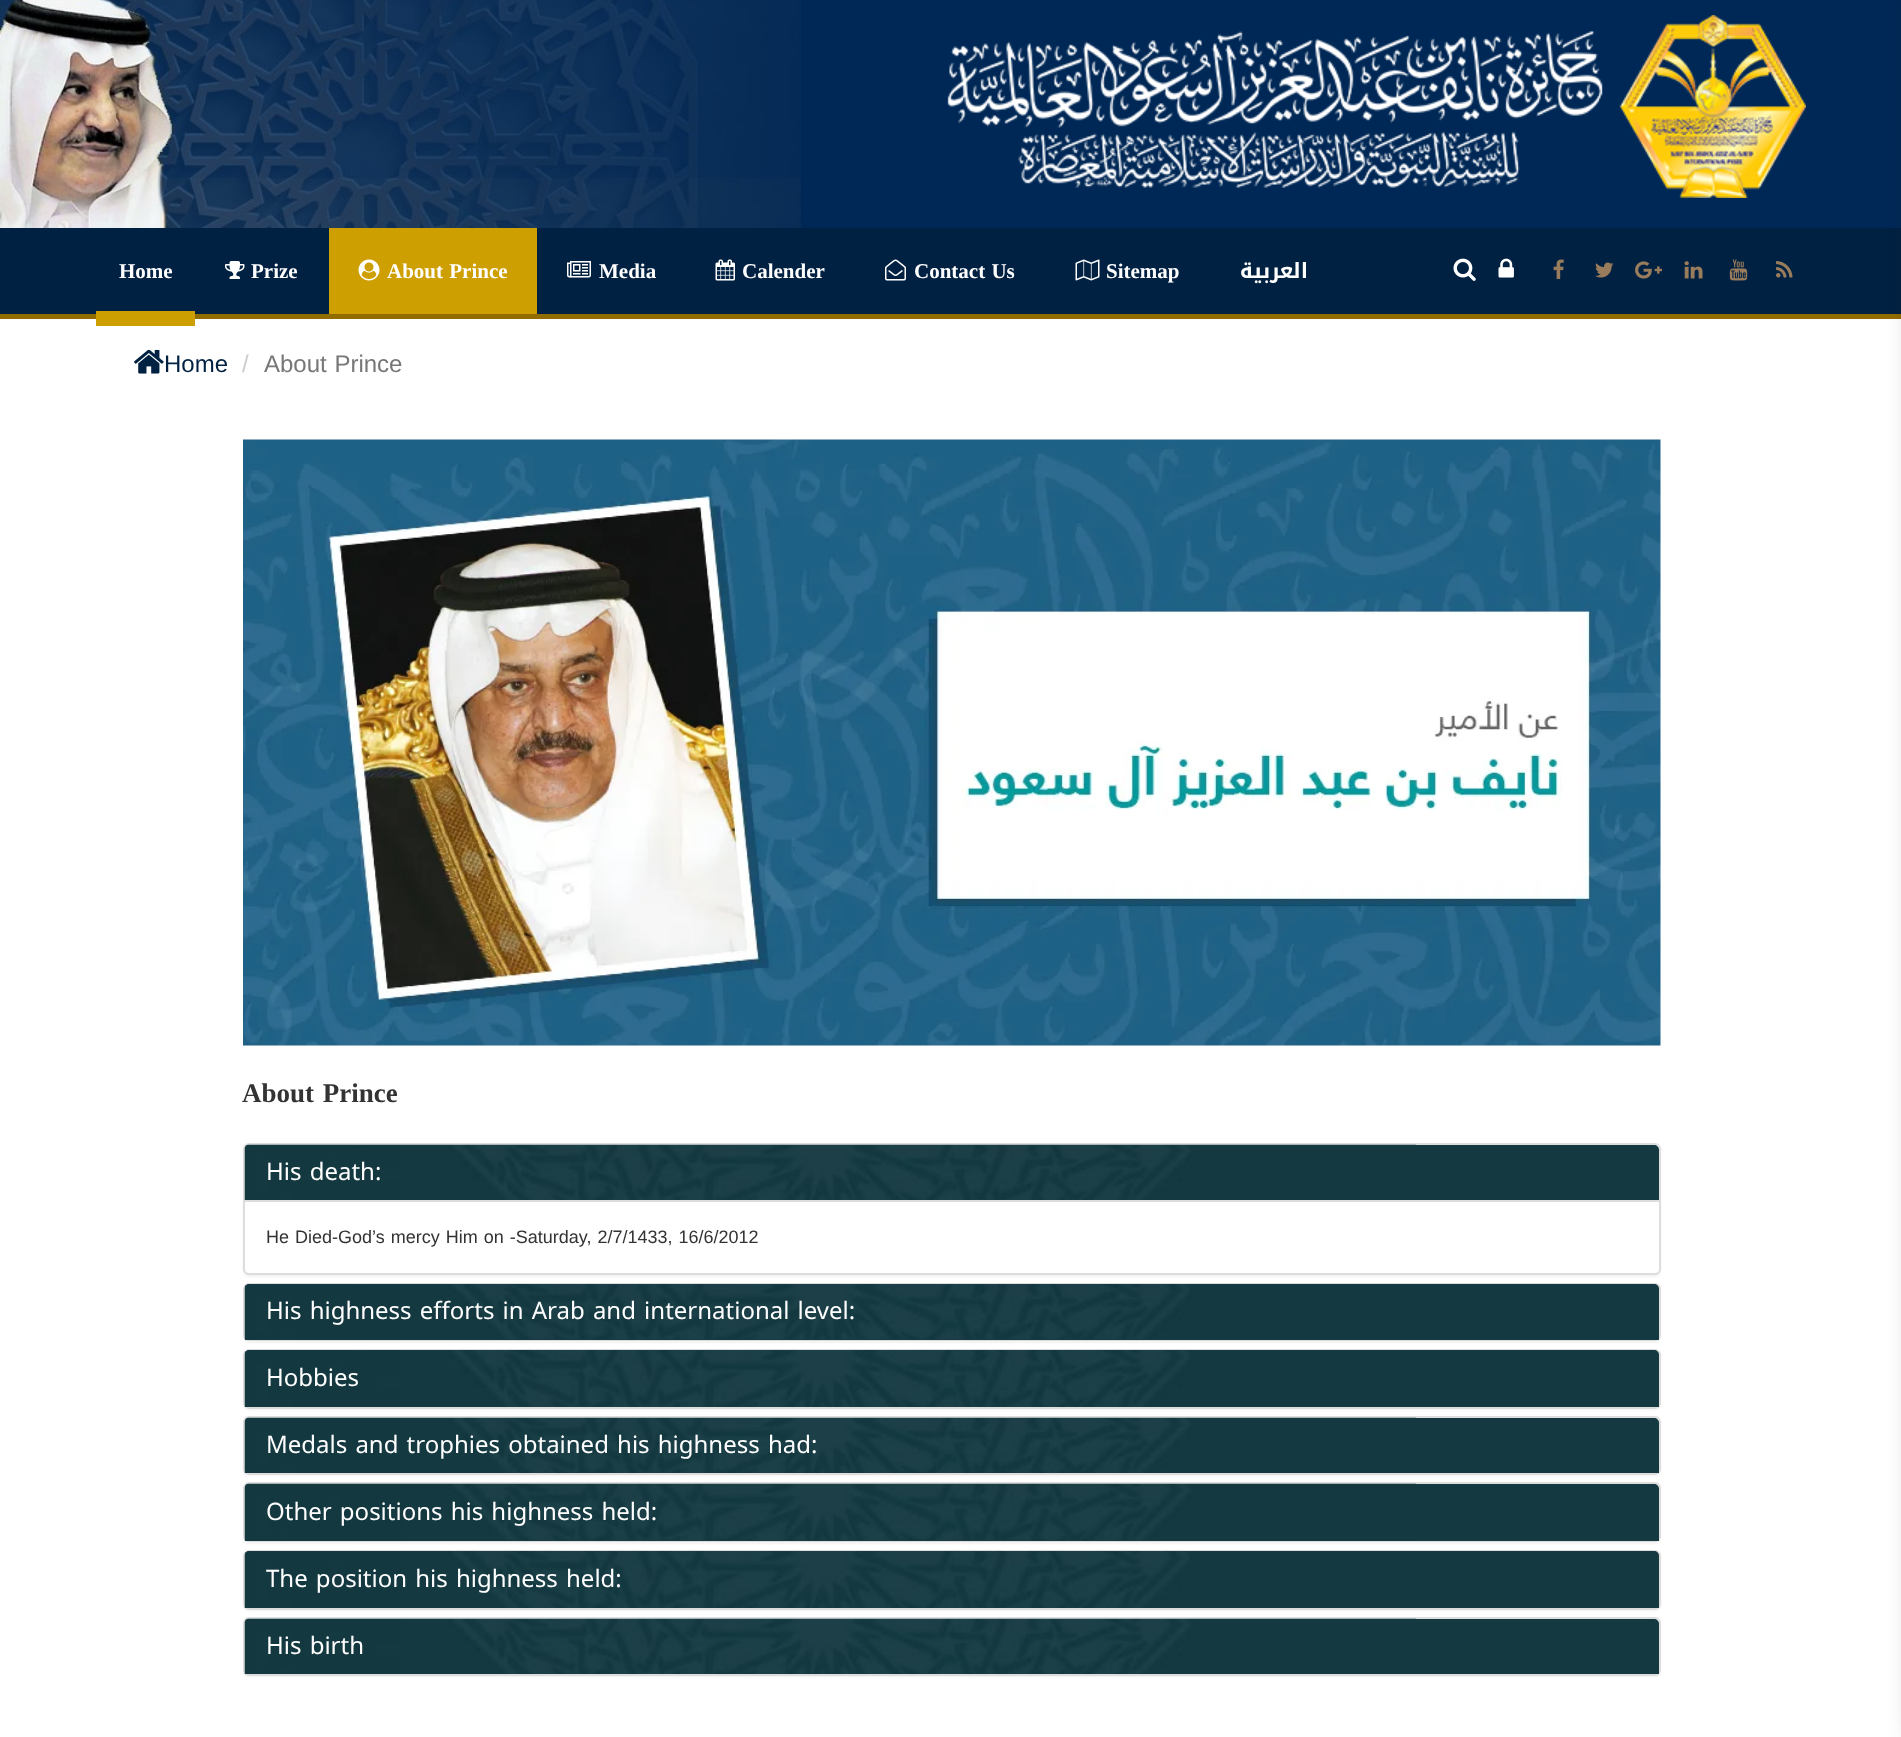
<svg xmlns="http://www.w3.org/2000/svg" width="1901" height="1737">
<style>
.a{font:bold 21px Liberation Serif;fill:#fff}
.b{font:bold 21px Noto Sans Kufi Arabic;direction:rtl;fill:#fff}
.c{font:24px Liberation Sans;fill:#002142}
.d{font:24px Liberation Sans;fill:#ccc}
.e{font:24px Liberation Sans;fill:#777}
.f{font:bold 27px Liberation Serif;fill:#333}
.g{font:24px Noto Kufi Arabic;fill:#fff}
.h{font:18px Liberation Sans;fill:#333}
</style>
<rect width="100%" height="100%" fill="#fff"/>
<path fill="#002856" d="M801 0h1100v228H801z"/>
<image href="1.png" x="0" y="0" width="801" height="228"/>
<image href="2.png" x="947" y="15" width="859" height="183"/>
<path fill="#002142" d="M0 228h1901v86H0z"/>
<path fill="#916d00" d="M0 314h1901v5H0z"/>
<path fill="#ce9f00" d="M96 311h99v15H96z"/>
<image href="3.png" x="225" y="261" width="20" height="18"/>
<path fill="#ce9f00" d="M329 228h208v86H329z"/>
<image href="4.png" x="358" y="259" width="22" height="22"/>
<image href="5.png" x="567" y="261" width="24" height="17"/>
<image href="6.png" x="715" y="259" width="20" height="22"/>
<image href="7.png" x="885" y="259" width="21" height="22"/>
<image href="8.png" x="1075" y="259" width="25" height="22"/>
<image href="9.png" x="1453" y="258" width="23" height="23"/>
<image href="10.png" x="1498" y="258" width="16" height="20"/>
<image href="11.png" x="1553" y="259" width="11" height="20"/>
<image href="12.png" x="1595" y="262" width="19" height="16"/>
<image href="13.png" x="1635" y="261" width="27" height="18"/>
<image href="14.png" x="1684" y="261" width="19" height="18"/>
<image href="15.png" x="1729" y="259" width="19" height="22"/>
<image href="16.png" x="1776" y="261" width="17" height="17"/>
<image href="17.png" x="134" y="349" width="30" height="25"/>
<image href="18.png" x="243" y="439" width="1418" height="607"/>
<rect fill="#0000000d" filter="blur(1px)" x="243" y="1145" width="1418" height="132" rx="6"/>
<rect fill="#fff" stroke="#ddd" stroke-width="2" x="244" y="1144" width="1416" height="130" rx="5"/>
<path fill="#143941" d="M250 1145h1404c3 0 5 2 5 5v50h-1414v-50c0-3 2-5 5-5z"/>
<image href="19.png" x="244" y="1144" width="1172" height="56"/>
<path fill="#ddd" d="M245 1200h1414v2H245z"/>
<rect fill="#0000000d" filter="blur(1px)" x="243" y="1284" width="1418" height="59" rx="6"/>
<rect fill="none" stroke="#ddd" stroke-width="2" x="244" y="1284" width="1416" height="56" rx="5"/>
<path fill="#143941" d="M250 1284h1404c3 0 5 2 5 5v51h-1414v-51c0-3 2-5 5-5z"/>
<image href="20.png" x="244" y="1284" width="945" height="56"/>
<rect fill="#0000000d" filter="blur(1px)" x="243" y="1350" width="1418" height="60" rx="6"/>
<rect fill="none" stroke="#ddd" stroke-width="2" x="244" y="1350" width="1416" height="58" rx="5"/>
<path fill="#143941" d="M250 1350h1404c3 0 5 2 5 5v52h-1414v-52c0-3 2-5 5-5z"/>
<image href="21.png" x="244" y="1350" width="945" height="57"/>
<rect fill="#0000000d" filter="blur(1px)" x="243" y="1418" width="1418" height="58" rx="6"/>
<rect fill="#fff" stroke="#ddd" stroke-width="2" x="244" y="1417" width="1416" height="57" rx="5"/>
<path fill="#143941" d="M250 1418h1404c3 0 5 2 5 5v50h-1414v-50c0-3 2-5 5-5z"/>
<image href="22.png" x="244" y="1417" width="1172" height="56"/>
<rect fill="#0000000d" filter="blur(1px)" x="243" y="1484" width="1418" height="60" rx="6"/>
<rect fill="#fff" stroke="#ddd" stroke-width="2" x="244" y="1483" width="1416" height="58" rx="5"/>
<path fill="#143941" d="M250 1484h1404c3 0 5 2 5 5v52h-1414v-52c0-3 2-5 5-5z"/>
<image href="23.png" x="244" y="1483" width="1172" height="58"/>
<rect fill="#0000000d" filter="blur(1px)" x="243" y="1551" width="1418" height="60" rx="6"/>
<rect fill="none" stroke="#ddd" stroke-width="2" x="244" y="1551" width="1416" height="58" rx="5"/>
<path fill="#143941" d="M250 1551h1404c3 0 5 2 5 5v52h-1414v-52c0-3 2-5 5-5z"/>
<image href="21.png" x="244" y="1551" width="945" height="57"/>
<rect fill="#0000000d" filter="blur(1px)" x="243" y="1619" width="1418" height="58" rx="6"/>
<rect fill="#fff" stroke="#ddd" stroke-width="2" x="244" y="1618" width="1416" height="57" rx="5"/>
<path fill="#143941" d="M250 1619h1404c3 0 5 2 5 5v50h-1414v-50c0-3 2-5 5-5z"/>
<image href="22.png" x="244" y="1618" width="1172" height="56"/>
<path fill="#211717ad" filter="blur(15px)" d="M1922 0h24v1737H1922z"/>
<text class="a" x="119" y="278">Home</text>
<text class="a" x="251" y="278">Prize</text>
<text class="a" x="387" y="278" word-spacing="1">About Prince</text>
<text class="a" x="599" y="278">Media</text>
<text class="a" x="742" y="278">Calender</text>
<text class="a" x="914" y="278" word-spacing="1">Contact Us</text>
<text class="a" x="1106" y="278">Sitemap</text>
<text class="b" x="1308" y="278">العربية</text>
<text class="c" x="164" y="372">Home</text>
<text class="d" x="242" y="372">/</text>
<text class="e" x="264" y="372" word-spacing="1">About Prince</text>
<text class="f" x="242" y="1102" word-spacing="2">About Prince</text>
<text class="g" x="266" y="1180">His death:</text>
<text class="h" x="266" y="1243" word-spacing="1">He Died-God’s mercy Him on -Saturday, 2/7/1433, 16/6/2012</text>
<text class="g" x="266" y="1319">His highness efforts in Arab and international level:</text>
<text class="g" x="266" y="1386">Hobbies</text>
<text class="g" x="266" y="1453">Medals and trophies obtained his highness had:</text>
<text class="g" x="266" y="1520">Other positions his highness held:</text>
<text class="g" x="266" y="1587">The position his highness held:</text>
<text class="g" x="266" y="1654">His birth</text>
</svg>
